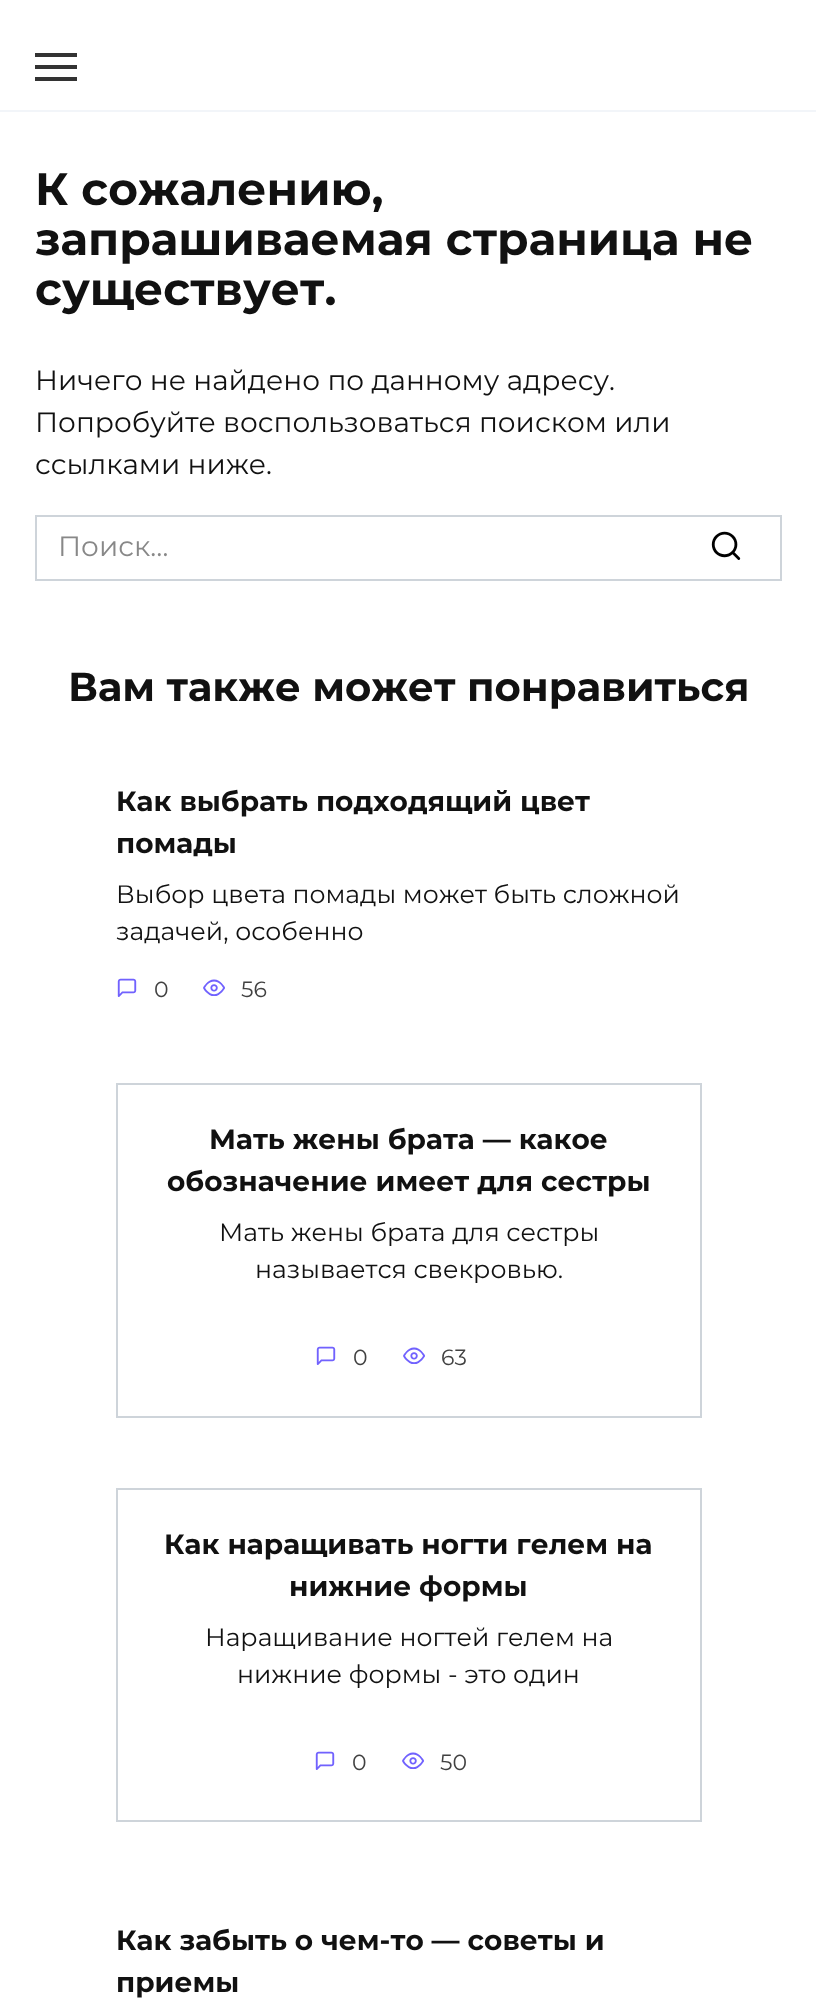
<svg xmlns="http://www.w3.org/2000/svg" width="816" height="2012">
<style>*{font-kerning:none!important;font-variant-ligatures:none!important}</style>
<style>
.a{font:bold 45.5px Montserrat;fill:#111}
.b{font:28px Montserrat;fill:#111}
.c{font:28px Montserrat;fill:#888}
.d{font:34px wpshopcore;fill:#000}
.e{font:bold 40.25px Montserrat;fill:#111}
.f{font:bold 28px Montserrat;fill:#111}
.g{font:25.2px Montserrat;fill:#111}
.h{font:22px wpshopcore;fill:#7162fe}
.i{font:22px Montserrat;fill:#414141}
</style>
<rect width="100%" height="100%" fill="#fff"/>
<path fill="#f2f5f9" d="M0 110h816v2H0z"/>
<path fill="#333" d="M35 53h42v4H35z"/>
<path fill="#333" d="M35 65h42v4H35z"/>
<path fill="#333" d="M35 77h42v4H35z"/>
<path fill="none" stroke="#ced4da" stroke-width="2" d="M36 516h745v64H36z"/>
<path fill="none" stroke="#ced4da" stroke-width="2" d="M117 1084h584v333H117z"/>
<path fill="none" stroke="#ced4da" stroke-width="2" d="M117 1489h584v332H117z"/>
<text class="a" x="35" y="205">К сожалению,</text>
<text class="a" x="35" y="255">запрашиваемая страница не</text>
<text class="a" x="35" y="305">существует.</text>
<text class="b" x="35" y="390">Ничего не найдено по данному адресу.</text>
<text class="b" x="35" y="432">Попробуйте воспользоваться поиском или</text>
<text class="b" x="35" y="474">ссылками ниже.</text>
<text class="c" x="58" y="556">Поиск…</text>
<text class="d" x="709" y="560">🔍</text>
<text class="e" x="68" y="701">Вам также может понравиться</text>
<text class="f" x="116" y="811">Как выбрать подходящий цвет</text>
<text class="f" x="116" y="853">помады</text>
<text class="g" x="116" y="903">Выбор цвета помады может быть сложной</text>
<text class="g" x="116" y="940">задачей, особенно</text>
<text class="h" x="116" y="997">💬</text>
<text class="i" x="154" y="997">0</text>
<text class="h" x="203" y="997">👀</text>
<text class="i" x="241" y="997">56</text>
<text class="f" x="209" y="1149">Мать жены брата — какое</text>
<text class="f" x="167" y="1191">обозначение имеет для сестры</text>
<text class="g" x="219" y="1241">Мать жены брата для сестры</text>
<text class="g" x="255" y="1278">называется свекровью.</text>
<text class="h" x="315" y="1365">💬</text>
<text class="i" x="353" y="1365">0</text>
<text class="h" x="403" y="1365">👀</text>
<text class="i" x="441" y="1365">63</text>
<text class="f" x="164" y="1554">Как наращивать ногти гелем на</text>
<text class="f" x="289" y="1596">нижние формы</text>
<text class="g" x="205" y="1646">Наращивание ногтей гелем на</text>
<text class="g" x="237" y="1683">нижние формы - это один</text>
<text class="h" x="314" y="1770">💬</text>
<text class="i" x="352" y="1770">0</text>
<text class="h" x="402" y="1770">👀</text>
<text class="i" x="440" y="1770">50</text>
<text class="f" x="116" y="1950">Как забыть о чем-то — советы и</text>
<text class="f" x="116" y="1992">приемы</text>
</svg>
